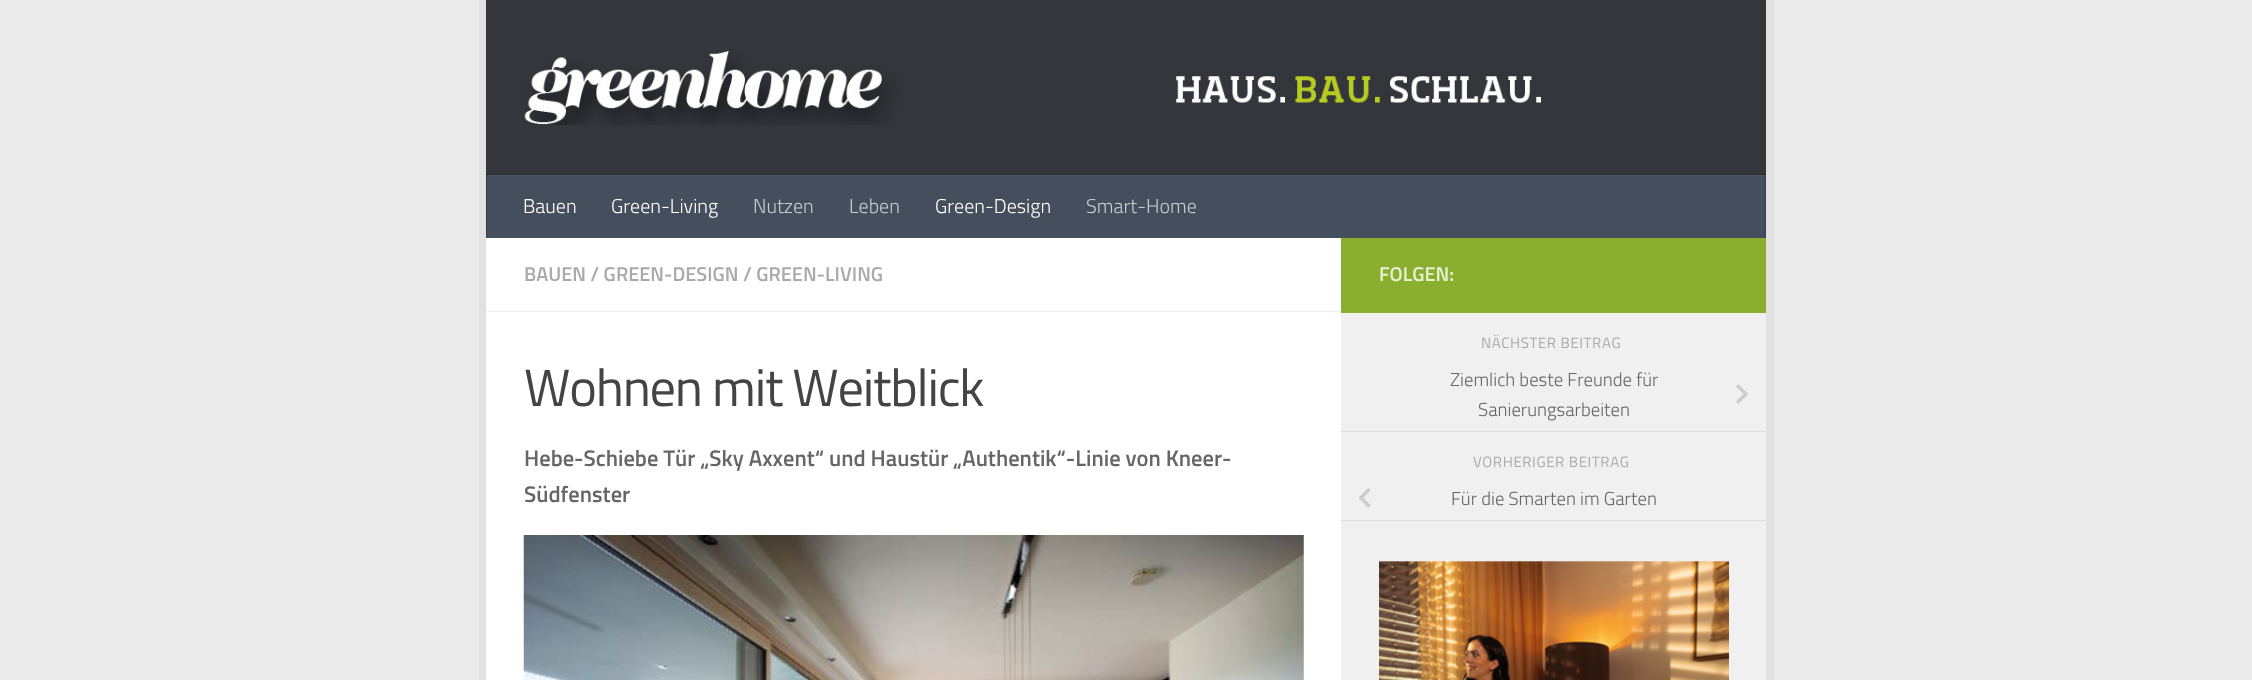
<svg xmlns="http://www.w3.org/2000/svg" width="2252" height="680">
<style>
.a{font:300 20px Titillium;fill:#fff}
.b{font:300 20px Titillium;fill:#c7cace}
.c{font:600 20px Titillium;fill:#aaa}
.d{font:52.5px Titillium;letter-spacing:-1.25px;fill:#444}
.e{font:600 22.5px Titillium;fill:#666}
.f{font:600 20px Titillium;fill:#e8efd5}
.g{font:15px Titillium;letter-spacing:0.6px;fill:#aaa}
.h{font:300 18.75px Titillium;fill:#666}
</style>
<rect width="100%" height="100%" fill="#eaeaea"/>
<path fill="#e1e1e1" d="M479 0v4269h1280h-1273v-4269z"/>
<path fill="#e1e1e1" d="M494 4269h1280v-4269h-8v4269z"/>
<path fill="#33363b" d="M486 0h1280v174H486z"/>
<image href="1.png" x="524" y="50" width="1018" height="75"/>
<path fill="#292b2f" d="M486 174v62v-61h1280v-1z"/>
<path fill="#454e5c" d="M487 176h1278v62H487z"/>
<path fill="#4e5764" d="M486 175h1280v1H486z"/>
<path fill="#373e4a" d="M1765 175h1v63H1765z"/>
<path fill="#414853" d="M1765 175h1v1H1765z"/>
<path fill="#373e4a" d="M486 175h1v63H486z"/>
<path fill="#414853" d="M486 175h1v1H486z"/>
<path fill="#fff" d="M486 238h855v442H486z"/>
<path fill="#eee" d="M486 311h855v1H486z"/>
<image href="2.png" x="523" y="535" width="781" height="145"/>
<path fill="#8aaf2e" d="M1341 238h425v75H1341z"/>
<path fill="#f0f0f0" d="M1341 313h425v367H1341z"/>
<path fill="#ddd" d="M1341 431h425v1H1341z"/>
<image href="3.png" x="1736" y="384" width="12" height="20"/>
<path fill="#ddd" d="M1341 520h425v1H1341z"/>
<image href="4.png" x="1358" y="488" width="13" height="20"/>
<image href="5.png" x="1379" y="561" width="350" height="119"/>
<text class="a" x="523" y="213">Bauen</text>
<text class="a" x="611" y="213">Green-Living</text>
<text class="b" x="753" y="213">Nutzen</text>
<text class="b" x="849" y="213">Leben</text>
<text class="a" x="935" y="213">Green-Design</text>
<text class="b" x="1086" y="213">Smart-Home</text>
<text class="c" x="524" y="281">BAUEN / GREEN-DESIGN / GREEN-LIVING</text>
<text class="d" x="524" y="406">Wohnen mit Weitblick</text>
<text class="e" x="524" y="466">Hebe-Schiebe Tür „Sky Axxent“ und Haustür „Authentik“-Linie von Kneer-</text>
<text class="e" x="524" y="502">Südfenster</text>
<text class="f" x="1379" y="281">FOLGEN:</text>
<text class="g" x="1481" y="348">NÄCHSTER BEITRAG</text>
<text class="h" x="1450" y="386">Ziemlich beste Freunde für</text>
<text class="h" x="1478" y="416">Sanierungsarbeiten</text>
<text class="g" x="1473" y="467">VORHERIGER BEITRAG</text>
<text class="h" x="1451" y="505">Für die Smarten im Garten</text>
</svg>
